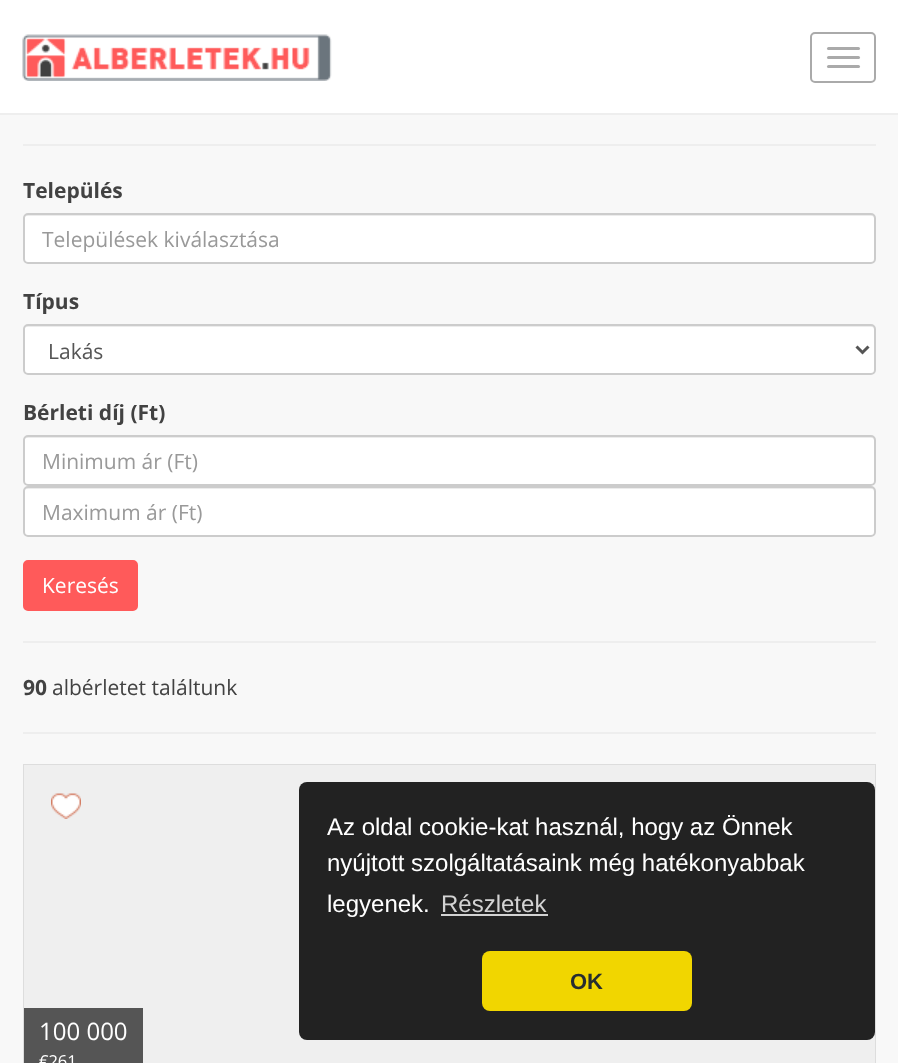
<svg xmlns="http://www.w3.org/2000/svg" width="898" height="1063">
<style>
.a{font:bold 21px Open Sans;fill:#424242}
.b{font:21px Open Sans;fill:#999}
.c{font:21px Open Sans;fill:#555}
.d{font:21px Open Sans;fill:#fff}
.e{font:21px Open Sans;fill:#424242}
.f{font:24px Open Sans;fill:#fff}
.g{font:16.5px Open Sans;fill:#fff}
.h{font:24px Liberation Sans;fill:#fff}
.i{font:24px Liberation Sans;fill:#d3d3d3}
.j{font:bold 22px Liberation Sans;fill:#262d30}
</style>
<rect width="100%" height="100%" fill="#f8f8f8"/>
<path fill="#fff" d="M0 0h898v113H0z"/>
<path fill="#eee" d="M0 113h898v2H0z"/>
<image href="1.png" x="22" y="34" width="310" height="47"/>
<rect fill="none" stroke="#aaa" stroke-width="2" x="811" y="33" width="64" height="49" rx="4"/>
<rect fill="#aaa" x="827" y="47" width="33" height="3" rx="1.5"/>
<rect fill="#aaa" x="827" y="56" width="33" height="3" rx="1.5"/>
<rect fill="#aaa" x="827" y="65" width="33" height="3" rx="1.5"/>
<path fill="#eee" d="M23 144h853v2H23z"/>
<rect fill="#fff" x="23" y="213" width="853" height="51" rx="5"/>
<path fill="#ececec" d="M27 216h845c1 0 2 1 2 3v43l1-2c0-3 0-42-1-44l-1-1h-847l-1 1l-1 3c0-2 1-3 3-3z"/>
<rect fill="none" stroke="#ccc" stroke-width="2" x="24" y="214" width="851" height="49" rx="4"/>
<rect fill="#fff" x="23" y="324" width="853" height="51" rx="5"/>
<path fill="#ececec" d="M27 327h845c1 0 2 1 2 3v43l1-2c0-3 0-42-1-44l-1-1h-847l-1 1l-1 3c0-2 1-3 3-3z"/>
<rect fill="none" stroke="#ccc" stroke-width="2" x="24" y="325" width="851" height="49" rx="4"/>
<path fill="none" stroke="#555" stroke-width="3" d="M856.5 346.5l6 6l6-6"/>
<rect fill="#fff" x="23" y="435" width="853" height="51" rx="5"/>
<path fill="#ececec" d="M27 438h845c1 0 2 1 2 3v43l1-2c0-3 0-42-1-44l-1-1h-847l-1 1l-1 3c0-2 1-3 3-3z"/>
<rect fill="none" stroke="#ccc" stroke-width="2" x="24" y="436" width="851" height="49" rx="4"/>
<rect fill="#fff" x="23" y="486" width="853" height="51" rx="5"/>
<path fill="#ececec" d="M27 489h845c1 0 2 1 2 3v43l1-2c0-3 0-42-1-44l-1-1h-847l-1 1l-1 3c0-2 1-3 3-3z"/>
<rect fill="none" stroke="#ccc" stroke-width="2" x="24" y="487" width="851" height="49" rx="4"/>
<rect fill="#ff5a5a" stroke="#ff5a5a" stroke-width="2" x="24" y="561" width="113" height="49" rx="4"/>
<path fill="#eee" d="M23 641h853v2H23z"/>
<path fill="#eee" d="M23 732h853v2H23z"/>
<path fill="none" stroke="#ddd" stroke-width="2" d="M24 765h851v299H24z"/>
<path fill="#efefef" d="M24 765h851v298H24z"/>
<image href="2.png" x="51" y="793" width="30" height="26"/>
<path fill="#555" d="M24 1008h119v55H24z"/>
<rect fill="#222" x="299" y="782" width="576" height="258" rx="8"/>
<path fill="#d3d3d3" d="M441 914h107v2H441z"/>
<rect fill="#f1d600" x="482" y="951" width="210" height="60" rx="8"/>
<text class="a" x="23" y="198">Település</text>
<text class="b" x="42" y="247">Települések kiválasztása</text>
<text class="a" x="23" y="309">Típus</text>
<text class="c" x="48" y="359">Lakás</text>
<text class="a" x="23" y="420">Bérleti díj (Ft)</text>
<text class="b" x="42" y="469">Minimum ár (Ft)</text>
<text class="b" x="42" y="520">Maximum ár (Ft)</text>
<text class="d" x="42" y="593">Keresés</text>
<text class="a" x="23" y="695">90</text>
<text class="e" x="52" y="695">albérletet találtunk</text>
<text class="f" x="39" y="1040">100 000</text>
<text class="g" x="39" y="1067">€261</text>
<text class="h" x="327" y="835">Az oldal cookie-kat használ, hogy az Önnek</text>
<text class="h" x="327" y="871">nyújtott szolgáltatásaink még hatékonyabbak</text>
<text class="h" x="327" y="912">legyenek.</text>
<text class="i" x="441" y="912">Részletek</text>
<text class="j" x="570" y="989">OK</text>
</svg>
